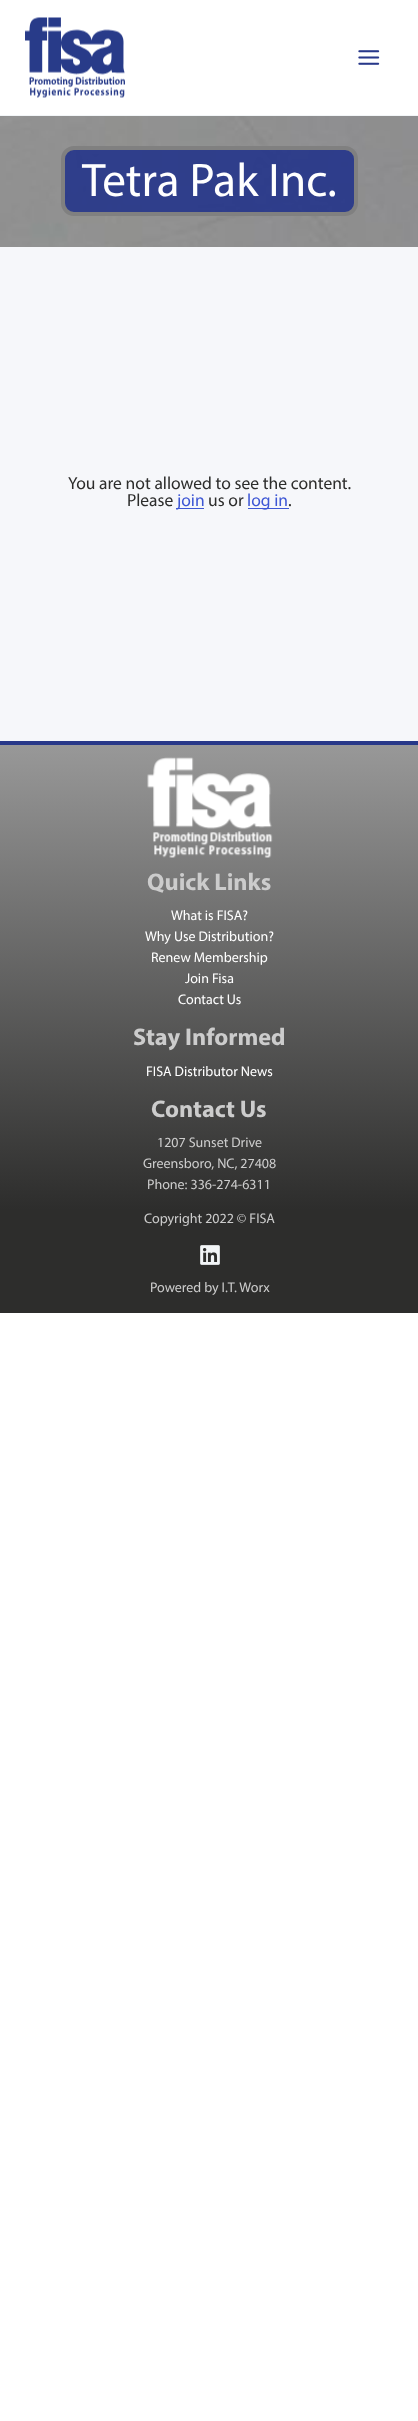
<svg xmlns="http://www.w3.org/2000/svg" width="418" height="2421">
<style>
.a{font:47.25px Myriad;fill:#fff}
.b{font:17.5px Myriad;fill:#2d2d2c}
.c{font:17.5px Myriad;fill:#3e57d5}
.d{font:bold 24.25px Myriad;fill:#ccc}
.e{font:14px Myriad;fill:#fff}
.f{font:14px Myriad;fill:#ccc}
</style>
<defs>
<linearGradient id="g1" gradientUnits="userSpaceOnUse" x1="209" y1="745" x2="209" y2="1210"><stop offset="0" stop-color="#989898"/><stop offset="1" stop-color="#2d2d2c"/></linearGradient>
</defs>
<rect width="100%" height="100%" fill="#fff"/>
<path fill="#f2f5f7" d="M0 115h418v1H0z"/>
<image href="1.png" x="25" y="17" width="100" height="81"/>
<image href="2.png" x="358" y="50" width="22" height="15"/>
<image href="3.png" x="0" y="116" width="418" height="131"/>
<rect fill="#28388af0" stroke="#808080" stroke-width="4" x="63" y="148" width="293" height="66" rx="11"/>
<path fill="#f6f7fa" d="M0 247h418v494H0z"/>
<path fill="#3e57d5" d="M176 508h28v1H176z"/>
<path fill="#3e57d5" d="M248 508h41v1H248z"/>
<path fill="url(#g1)" d="M0 745h418v465H0z"/>
<path fill="#283889" d="M0 741h418v4H0z"/>
<image href="4.png" x="147" y="757" width="126" height="101"/>
<path fill="#2d2d2c" d="M0 1210h418v103H0z"/>
<image href="5.png" x="200" y="1245" width="20" height="20"/>
<text class="a" x="82" y="196">Tetra Pak Inc.</text>
<text class="b" x="68" y="489">You are not allowed to see the content.</text>
<text class="b" x="127" y="506">Please</text>
<text class="c" x="177" y="506">join</text>
<text class="b" x="208" y="506">us or</text>
<text class="c" x="247" y="506">log in</text>
<text class="b" x="288" y="506">.</text>
<text class="d" x="147" y="890">Quick Links</text>
<text class="e" x="171" y="920">What is FISA?</text>
<text class="e" x="145" y="941">Why Use Distribution?</text>
<text class="e" x="151" y="962">Renew Membership</text>
<text class="e" x="185" y="983">Join Fisa</text>
<text class="e" x="178" y="1004">Contact Us</text>
<text class="d" x="133" y="1045">Stay Informed</text>
<text class="e" x="146" y="1076">FISA Distributor News</text>
<text class="d" x="151" y="1117">Contact Us</text>
<text class="f" x="157" y="1147">1207 Sunset Drive</text>
<text class="f" x="143" y="1168">Greensboro, NC, 27408</text>
<text class="f" x="147" y="1189">Phone: 336-274-6311</text>
<text class="f" x="144" y="1223">Copyright 2022 © FISA</text>
<text class="f" x="150" y="1292">Powered by I.T. Worx</text>
</svg>
